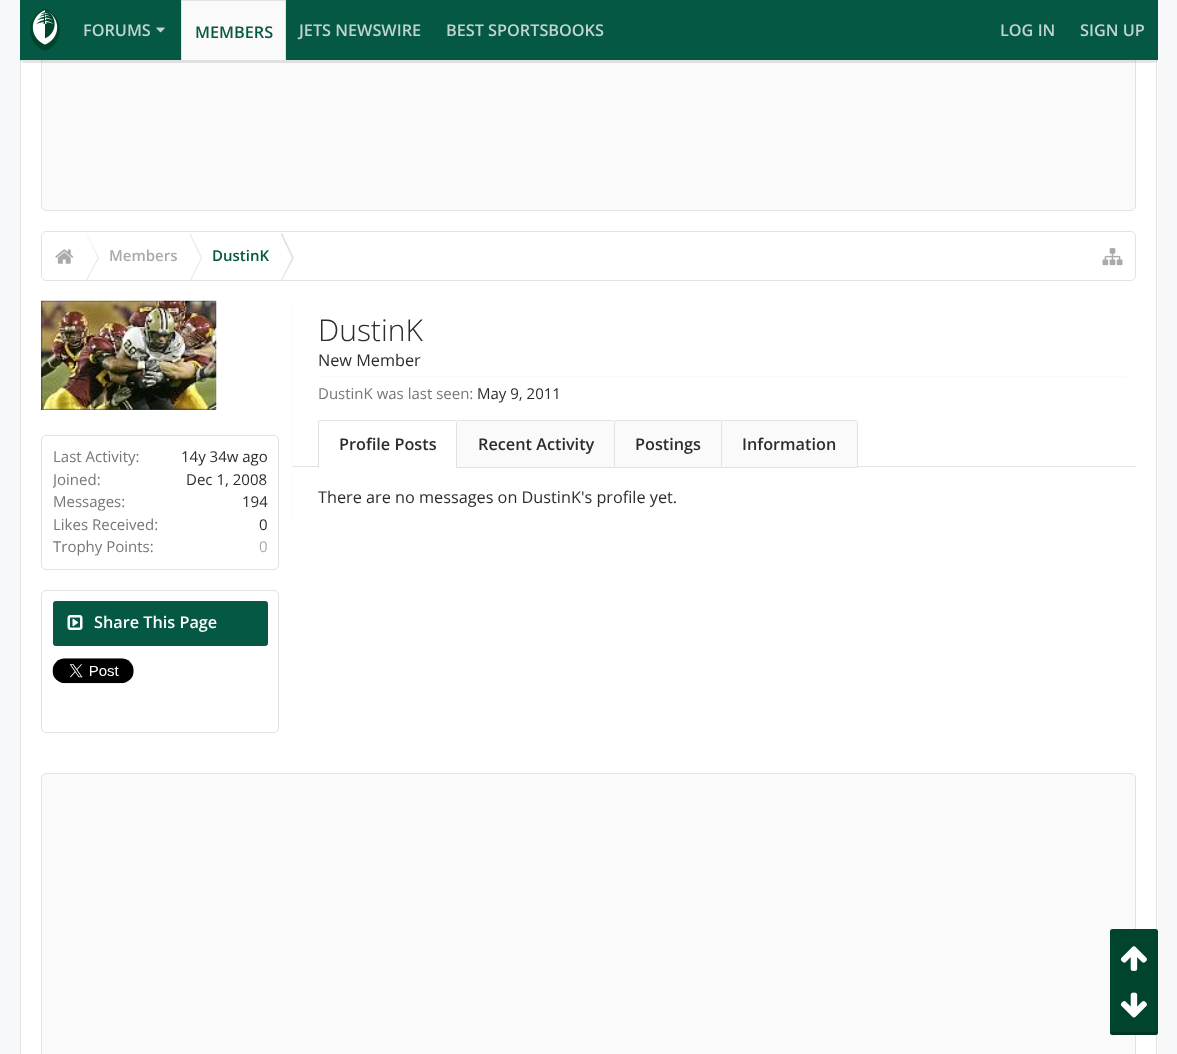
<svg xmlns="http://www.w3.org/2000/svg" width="1177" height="1054">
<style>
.a{font:600 16.25px Open Sans;fill:#c1d5d0}
.b{font:600 16.25px Open Sans;fill:#055843}
.c{font:600 15px Open Sans;fill:#aaa}
.d{font:600 15px Open Sans;fill:#055843}
.e{font:300 30px Open Sans;fill:#2c2c2c}
.f{font:16.25px Open Sans;fill:#2c2c2c}
.g{font:15px Open Sans;fill:#767676}
.h{font:15px Open Sans;fill:#2c2c2c}
.i{font:600 16.25px Open Sans;fill:#2c2c2c}
.j{font:15px Open Sans;fill:#aaa}
.k{font:600 16.25px Open Sans;fill:#fff}
</style>
<defs>
<clipPath id="clip1"><path d="M53 469h215v22H53z"/></clipPath>
</defs>
<rect width="100%" height="100%" fill="#f6f8f9"/>
<path fill="#fff" d="M21 60h1137v994H21z"/>
<path fill="#e2e2e2" d="M1156 60h1v994H1156z"/>
<path fill="#e2e2e2" d="M20 60h1v994H20z"/>
<rect fill="#fafafa" stroke="#e2e2e2" x="41.5" y="-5.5" width="1094" height="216" rx="4.5"/>
<path fill="#0000001a" d="M20 55v3c0 3 2 5 5 5h1128c3 0 5-2 5-5v-50v-2v49c0 3-3 5-6 5h-1127c-3 0-5-2-5-5z"/>
<path fill="#055843" d="M20 0h1138v60H20z"/>
<image href="1.png" x="30" y="9" width="30" height="42"/>
<image href="2.png" x="156" y="27" width="9" height="6"/>
<path fill="#fafafa" d="M182 1h103v58H182z"/>
<path fill="#e2e2e2" d="M181 0h105v1H181z"/>
<path fill="#e2e2e2" d="M285 0h1v60H285z"/>
<path fill="#fafafa" d="M181 59h105v1H181z"/>
<path fill="#e2e2e2" d="M181 0h1v60H181z"/>
<rect fill="none" stroke="#e2e2e2" x="41.5" y="231.5" width="1094" height="49" rx="4.5"/>
<image href="3.png" x="55" y="249" width="19" height="15"/>
<path fill="#e2e2e2" d="M86 233l13 25l-12 22h-1z"/>
<path fill="#fff" d="M86 233l12 25l-12 22h-1v-47z"/>
<path fill="#e2e2e2" d="M190 233l12 25l-11 22h-1z"/>
<path fill="#fff" d="M189 233l12 25l-11 22h-1z"/>
<path fill="#e2e2e2" d="M282 233l12 25l-12 22h-1v-47z"/>
<path fill="#fff" d="M280 233l12 25l-11 22h-1z"/>
<image href="4.png" x="1102" y="248" width="21" height="18"/>
<path fill="#fafafa" d="M291 301h1v217H291z"/>
<path fill="#fafafa" d="M318 376h808v1H318z"/>
<path fill="#e2e2e2" d="M293 466h843v1H293z"/>
<path fill="#fff" d="M320.5 420h135c1.5 0 2.5 1 2.5 2.5v45.5h-140v-45.5c0-1.5 1-2.5 2.5-2.5z"/>
<path fill="#e2e2e2" d="M319 420h137v1H319z"/>
<path fill="#e2e2e2" d="M318 421h1v47H318z"/>
<path fill="#fafafa" stroke="#e2e2e2" d="M458.5 420.5h154c1 0 2 1 2 2v45h-158v-45c0-1 1-2 2-2z"/>
<path fill="#fafafa" stroke="#e2e2e2" d="M616.5 420.5h104c1 0 2 1 2 2v45h-108v-45c0-1 1-2 2-2z"/>
<path fill="#fafafa" stroke="#e2e2e2" d="M723.5 420.5h132c1 0 2 1 2 2v45h-136v-45c0-1 1-2 2-2z"/>
<path fill="#055843" d="M41 301h175v109H41z"/>
<image href="5.png" x="41" y="300" width="176" height="110"/>
<rect fill="none" stroke="#e2e2e2" x="41.5" y="435.5" width="237" height="134" rx="4.5"/>
<rect fill="#fff" x="43" y="436" width="235" height="133" rx="5"/>
<rect fill="none" stroke="#e2e2e2" x="41.5" y="590.5" width="237" height="142" rx="4.5"/>
<rect fill="#fff" x="43" y="591" width="235" height="140" rx="5"/>
<rect fill="#055843" stroke="#055843" x="53.5" y="601.5" width="214" height="44" rx="2"/>
<image href="6.png" x="67" y="615" width="16" height="15"/>
<image href="7.png" x="52" y="658" width="82" height="26"/>
<rect fill="#fafafa" stroke="#e2e2e2" x="41.5" y="773.5" width="1094" height="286" rx="4.5"/>
<rect fill="#00442e" x="1110" y="929" width="48" height="106" rx="2.5"/>
<path fill="#00000033" d="M1110 1030c0 7 2 5 10 5h28c8 0 10 2 10-5c0 1-2 2-3 2h-43c-1 0-2-1-2-2z"/>
<image href="8.png" x="1120" y="946" width="27" height="25"/>
<image href="9.png" x="1120" y="992" width="27" height="26"/>
<text class="a" x="83" y="36">FORUMS</text>
<text class="b" x="195" y="38">MEMBERS</text>
<text class="a" x="299" y="36">JETS NEWSWIRE</text>
<text class="a" x="446" y="36">BEST SPORTSBOOKS</text>
<text class="a" x="1000" y="36">LOG IN</text>
<text class="a" x="1080" y="36">SIGN UP</text>
<text class="c" x="109" y="261">Members</text>
<text class="d" x="212" y="261">DustinK</text>
<text class="e" x="318" y="341">DustinK</text>
<text class="f" x="318" y="366">New Member</text>
<text class="g" x="318" y="399">DustinK was last seen:</text>
<text class="h" x="477" y="399">May 9, 2011</text>
<text class="i" x="339" y="450">Profile Posts</text>
<text class="i" x="478" y="450">Recent Activity</text>
<text class="i" x="635" y="450">Postings</text>
<text class="i" x="742" y="450">Information</text>
<text class="f" x="318" y="503">There are no messages on DustinK's profile yet.</text>
<text class="g" x="53" y="462">Last Activity:</text>
<text class="h" x="181" y="462">14y 34w ago</text>
<g clip-path="url(#clip1)">
<text class="g" x="53" y="485">Joined:</text>
</g>
<text class="h" x="186" y="485">Dec 1, 2008</text>
<text class="g" x="53" y="507">Messages:</text>
<text class="h" x="242" y="507">194</text>
<text class="g" x="53" y="530">Likes Received:</text>
<text class="h" x="259" y="530">0</text>
<text class="g" x="53" y="552">Trophy Points:</text>
<text class="j" x="259" y="552">0</text>
<text class="k" x="94" y="628">Share This Page</text>
</svg>
